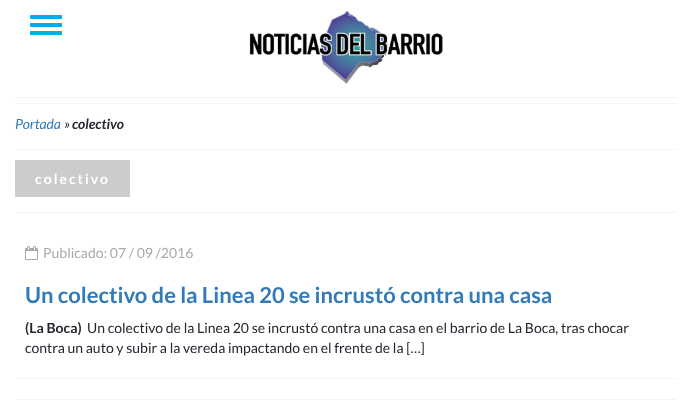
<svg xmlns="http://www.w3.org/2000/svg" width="692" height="400">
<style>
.a{font:italic 14px Lato;fill:#337ab7}
.b{font:italic 14px Lato;fill:#27242f}
.c{font:italic bold 14px Lato;fill:#27242f}
.d{font:bold 14px Lato;letter-spacing:2px;fill:#fff}
.e{font:14px Lato;fill:#aaa}
.f{font:bold 22px Lato;fill:#337ab7}
.g{font:bold 14px Lato;fill:#27242f}
.h{font:14px Lato;fill:#27242f}
</style>
<rect width="100%" height="100%" fill="#fff"/>
<rect fill="#00acec" x="30" y="15" width="32" height="4" rx="1"/>
<rect fill="#00acec" x="30" y="23" width="32" height="4" rx="1"/>
<rect fill="#00acec" x="30" y="31" width="32" height="4" rx="1"/>
<image href="1.png" x="249" y="11" width="194" height="73"/>
<path fill="#f5f5f5" d="M15 97h662v1H15z"/>
<path fill="#f4f3f5" d="M16 103h660v1H16z"/>
<path fill="#f4f3f5" d="M16 149h660v1H16z"/>
<path fill="#ccc" d="M15 160h115v37H15z"/>
<path fill="#f4f3f5" d="M16 212h660v1H16z"/>
<image href="2.png" x="25" y="246" width="13" height="14"/>
<path fill="#f4f3f5" d="M16 378h660v1H16z"/>
<path fill="#f4f3f5" d="M16 399h660v1H16z"/>
<text class="a" x="15" y="129">Portada</text>
<text class="b" x="64" y="129">»</text>
<text class="c" x="72" y="129">colectivo</text>
<text class="d" x="35" y="184">colectivo</text>
<text class="e" x="43" y="258">Publicado: 07 / 09 /2016</text>
<text class="f" x="25" y="303">Un colectivo de la Linea 20 se incrustó contra una casa</text>
<text class="g" x="25" y="333">(La Boca)</text>
<text class="h" x="87" y="333">Un colectivo de la Linea 20 se incrustó contra una casa en el barrio de La Boca, tras chocar</text>
<text class="h" x="25" y="353">contra un auto y subir a la vereda impactando en el frente de la […]</text>
</svg>
